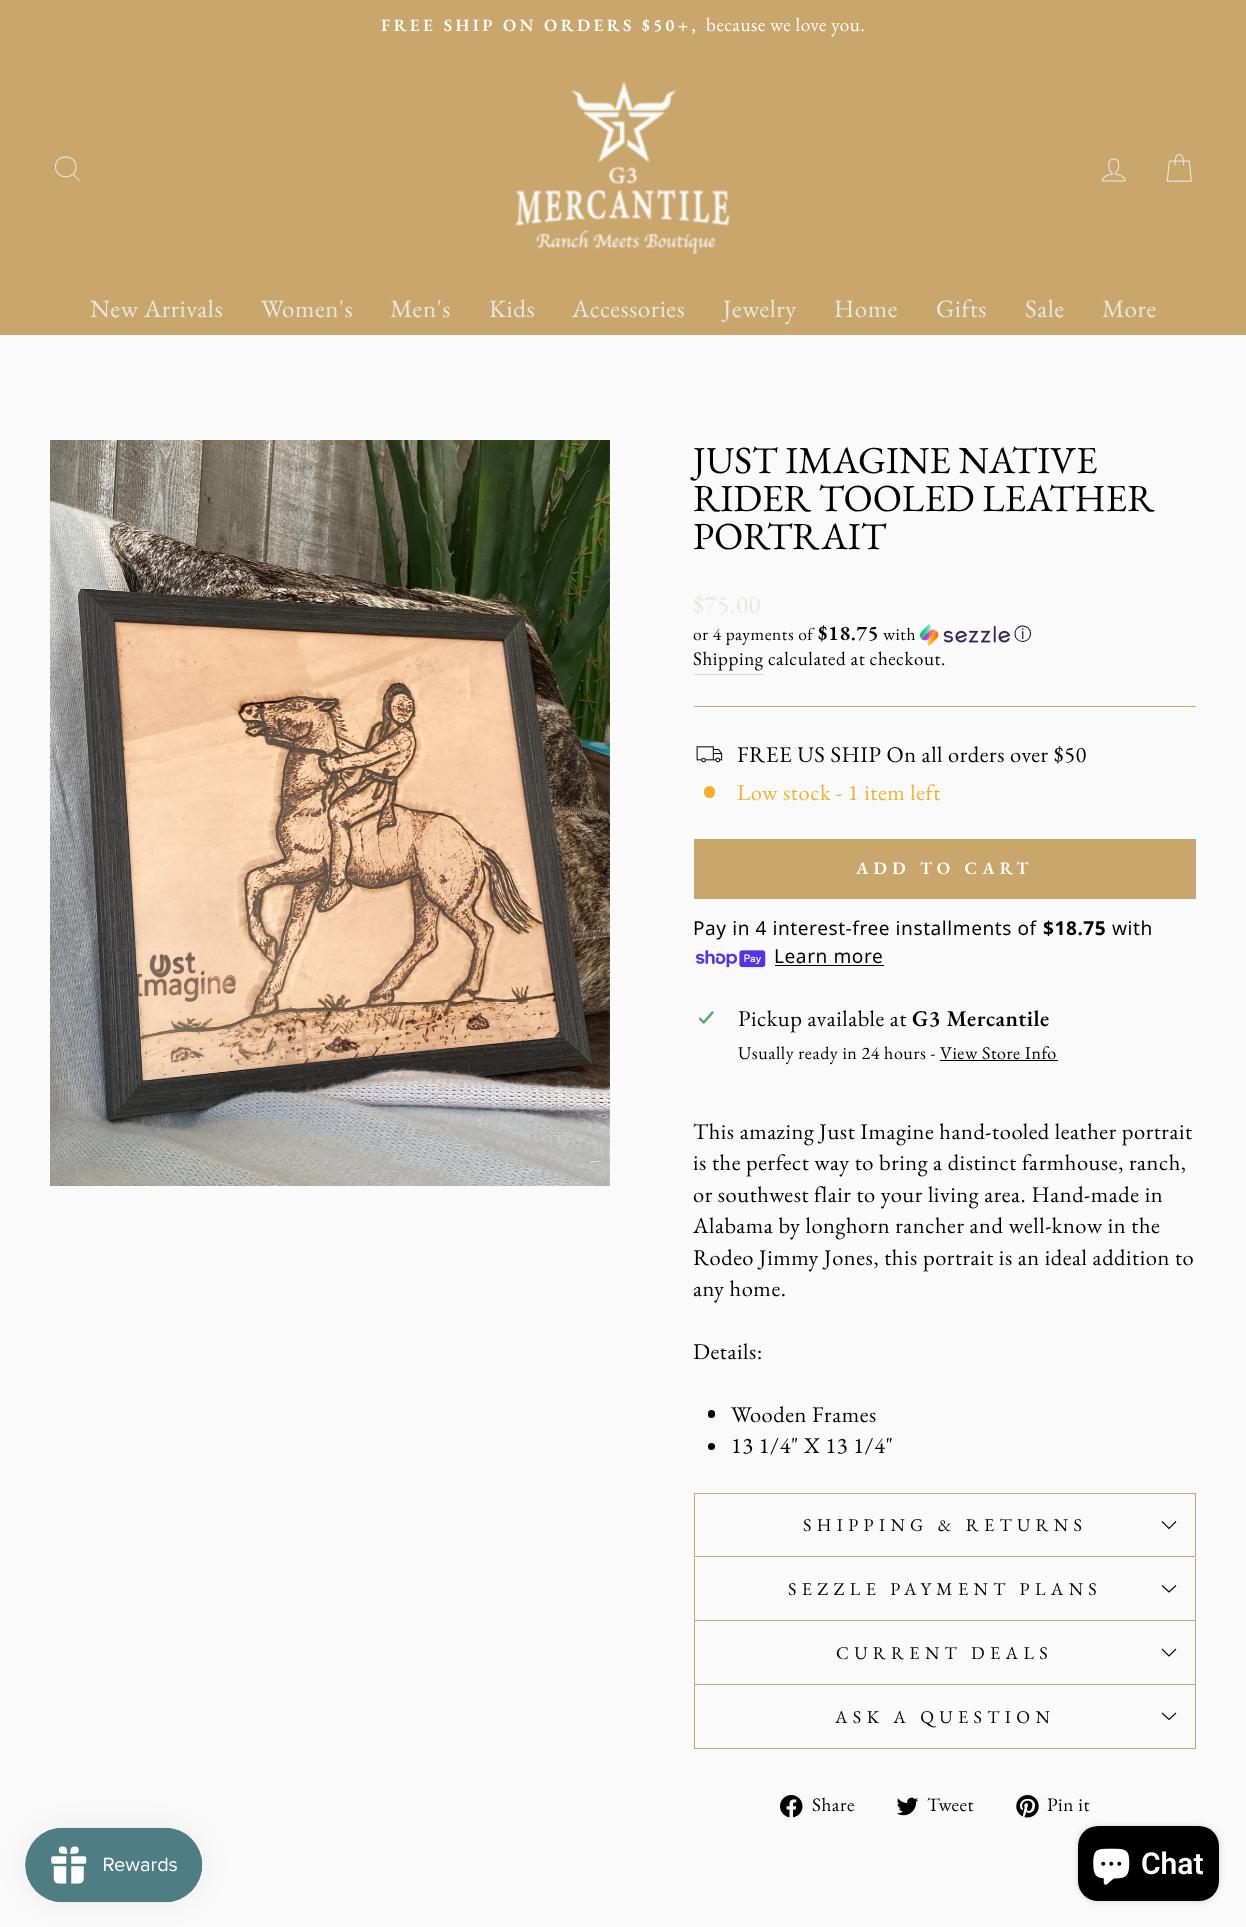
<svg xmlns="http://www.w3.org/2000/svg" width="1246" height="1927">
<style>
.a{font:600 17.25px EB Garamond;letter-spacing:3.4px;fill:#fff}
.b{font:19.1px EB Garamond;letter-spacing:0.55px;fill:#fff}
.c{font:25px EB Garamond;letter-spacing:0.55px;fill:#e8e8e1}
.d{font:38.25px EB Garamond;fill:#000}
.e{font:17.5px EB Garamond;letter-spacing:0.55px;fill:#000}
.f{font:600 21px EB Garamond;letter-spacing:0.55px;fill:#000}
.g{font:500 17.5px WenQuanYi Zen Hei;letter-spacing:0.55px;fill:#000}
.h{font:19.1px EB Garamond;letter-spacing:0.55px;fill:#000}
.i{font:22.5px EB Garamond;letter-spacing:0.55px;fill:#000}
.j{font:22.5px EB Garamond;letter-spacing:0.55px;fill:#f4af29}
.k{font:600 17.5px EB Garamond;letter-spacing:5.25px;fill:#fff}
.l{font:19.1px Noto Sans;letter-spacing:0.55px;fill:#000}
.m{font:bold 19.1px Noto Sans;letter-spacing:0.55px;fill:#000}
.n{font:600 22.5px EB Garamond;letter-spacing:0.55px;fill:#000}
.o{font:18px EB Garamond;letter-spacing:0.55px;fill:#000}
.p{font:18px EB Garamond;letter-spacing:5.4px;fill:#000}
.q{font:600 30px Roboto;fill:#fff}
</style>
<rect width="100%" height="100%" fill="#fafafa"/>
<path fill="#c9a66c" d="M0 0h1246v335H0z"/>
<path fill="none" stroke="#e8e8e1" stroke-width="1.1" d="M76 167c0 13-20.5 13-20.5 0c0-13.5 20.5-13.5 20.5 0zm3.5 14l-6.5-7"/>
<image href="1.png" x="515" y="81" width="215" height="174"/>
<image href="2.png" x="1101" y="158" width="25" height="24"/>
<image href="3.png" x="1166" y="154" width="26" height="28"/>
<image href="4.png" x="50" y="440" width="560" height="746"/>
<image href="5.png" x="920" y="624" width="90" height="22"/>
<path fill="#d5d5d5" d="M694 674h70v1H694z"/>
<path fill="#c9a66c" d="M694 706h502v1H694z"/>
<image href="6.png" x="696" y="746" width="27" height="17"/>
<rect fill="#f4af29" x="704" y="786" width="11" height="12" rx="5.5"/>
<path fill="#c9a66c" d="M694 839h502v60H694z"/>
<image href="7.png" x="696" y="950" width="70" height="18"/>
<path fill="#000" d="M775 965h109v1H775z"/>
<image href="8.png" x="699" y="1011" width="15" height="13"/>
<path fill="#000" d="M940 1060h118v1H940z"/>
<rect fill="#000" x="708" y="1410" width="7" height="8" rx="3.5"/>
<circle fill="#000" cx="711.5" cy="1446.5" r="3.5"/>
<path fill="#c9a66c" d="M694 1556h502v1H694z"/>
<path fill="#c9a66c" d="M694 1493h502v1H694z"/>
<path fill="#c9a66c" d="M1195 1493h1v63H1195z"/>
<path fill="#c9a66c" d="M694 1493h1v63H694z"/>
<path fill="none" stroke="#000" stroke-width="1.1" d="M1162 1521.5l7 7l7-7"/>
<path fill="#c9a66c" d="M694 1620h502v1H694z"/>
<path fill="#c9a66c" d="M1195 1558h1v62H1195z"/>
<path fill="#c9a66c" d="M694 1558h1v62H694z"/>
<path fill="none" stroke="#000" stroke-width="1.1" d="M1162 1585.5l7 6.5l7-6.5"/>
<path fill="#c9a66c" d="M694 1684h502v1H694z"/>
<path fill="#c9a66c" d="M1195 1621h1v63H1195z"/>
<path fill="#c9a66c" d="M694 1621h1v63H694z"/>
<path fill="none" stroke="#000" stroke-width="1.1" d="M1162 1649l7 7l7-7"/>
<path fill="#c9a66c" d="M694 1748h502v1H694z"/>
<path fill="#c9a66c" d="M1195 1685h1v63H1195z"/>
<path fill="#c9a66c" d="M694 1685h1v63H694z"/>
<path fill="none" stroke="#000" stroke-width="1.1" d="M1162 1713l7 6.5l7-6.5"/>
<image href="9.png" x="780" y="1795" width="23" height="23"/>
<image href="10.png" x="896" y="1797" width="23" height="19"/>
<image href="11.png" x="1016" y="1795" width="23" height="23"/>
<rect fill="#0000000d" filter="blur(15.5px)" x="25" y="1828" width="178" height="75" rx="37.5"/>
<image href="12.png" x="25" y="1827" width="178" height="76"/>
<rect fill="#00000026" filter="blur(3px)" x="1078" y="1826" width="141" height="75" rx="20"/>
<rect fill="#000" x="1078" y="1826" width="141" height="75" rx="20"/>
<image href="13.png" x="1093" y="1848" width="37" height="37"/>
<text class="a" x="381" y="31">FREE SHIP ON ORDERS $50+,</text>
<text class="b" x="706" y="31">because we love you.</text>
<text class="c" x="90" y="317">New Arrivals</text>
<text class="c" x="261" y="317">Women's</text>
<text class="c" x="390" y="317">Men's</text>
<text class="c" x="489" y="317">Kids</text>
<text class="c" x="572" y="317">Accessories</text>
<text class="c" x="723" y="317">Jewelry</text>
<text class="c" x="834" y="317">Home</text>
<text class="c" x="936" y="317">Gifts</text>
<text class="c" x="1025" y="317">Sale</text>
<text class="c" x="1102" y="317">More</text>
<text class="d" x="693" y="473">JUST IMAGINE NATIVE</text>
<text class="d" x="693" y="511">RIDER TOOLED LEATHER</text>
<text class="d" x="693" y="549">PORTRAIT</text>
<text class="c" x="693" y="613">$75.00</text>
<text class="e" x="693" y="640">or 4 payments of</text>
<text class="f" x="818" y="640">$18.75</text>
<text class="e" x="883" y="640">with</text>
<text class="g" x="1014" y="640">ⓘ</text>
<text class="h" x="693" y="665">Shipping</text>
<text class="h" x="768" y="665">calculated at checkout.</text>
<text class="i" x="737" y="762">FREE US SHIP On all orders over $50</text>
<text class="j" x="737" y="800">Low stock - 1 item left</text>
<text class="k" x="856" y="874">ADD TO CART</text>
<text class="l" x="693" y="935">Pay in 4 interest-free installments of</text>
<text class="m" x="1043" y="935">$18.75</text>
<text class="l" x="1112" y="935">with</text>
<text class="l" x="774" y="963">Learn more</text>
<text class="i" x="738" y="1026">Pickup available at</text>
<text class="n" x="912" y="1026">G3 Mercantile</text>
<text class="o" x="738" y="1059">Usually ready in 24 hours - View Store Info</text>
<text class="i" x="693" y="1139">This amazing Just Imagine hand-tooled leather portrait</text>
<text class="i" x="693" y="1170">is the perfect way to bring a distinct farmhouse, ranch,</text>
<text class="i" x="693" y="1202">or southwest flair to your living area. Hand-made in</text>
<text class="i" x="693" y="1233">Alabama by longhorn rancher and well-know in the</text>
<text class="i" x="693" y="1265">Rodeo Jimmy Jones, this portrait is an ideal addition to</text>
<text class="i" x="693" y="1296">any home.</text>
<text class="i" x="693" y="1359">Details:</text>
<text class="i" x="731" y="1422">Wooden Frames</text>
<text class="i" x="731" y="1453">13 1/4" X 13 1/4"</text>
<text class="p" x="803" y="1531">SHIPPING &amp; RETURNS</text>
<text class="p" x="788" y="1595">SEZZLE PAYMENT PLANS</text>
<text class="p" x="836" y="1659">CURRENT DEALS</text>
<text class="p" x="835" y="1723">ASK A QUESTION</text>
<text class="h" x="812" y="1811">Share</text>
<text class="h" x="927" y="1811">Tweet</text>
<text class="h" x="1047" y="1811">Pin it</text>
<text class="q" x="1141" y="1874">Chat</text>
</svg>
